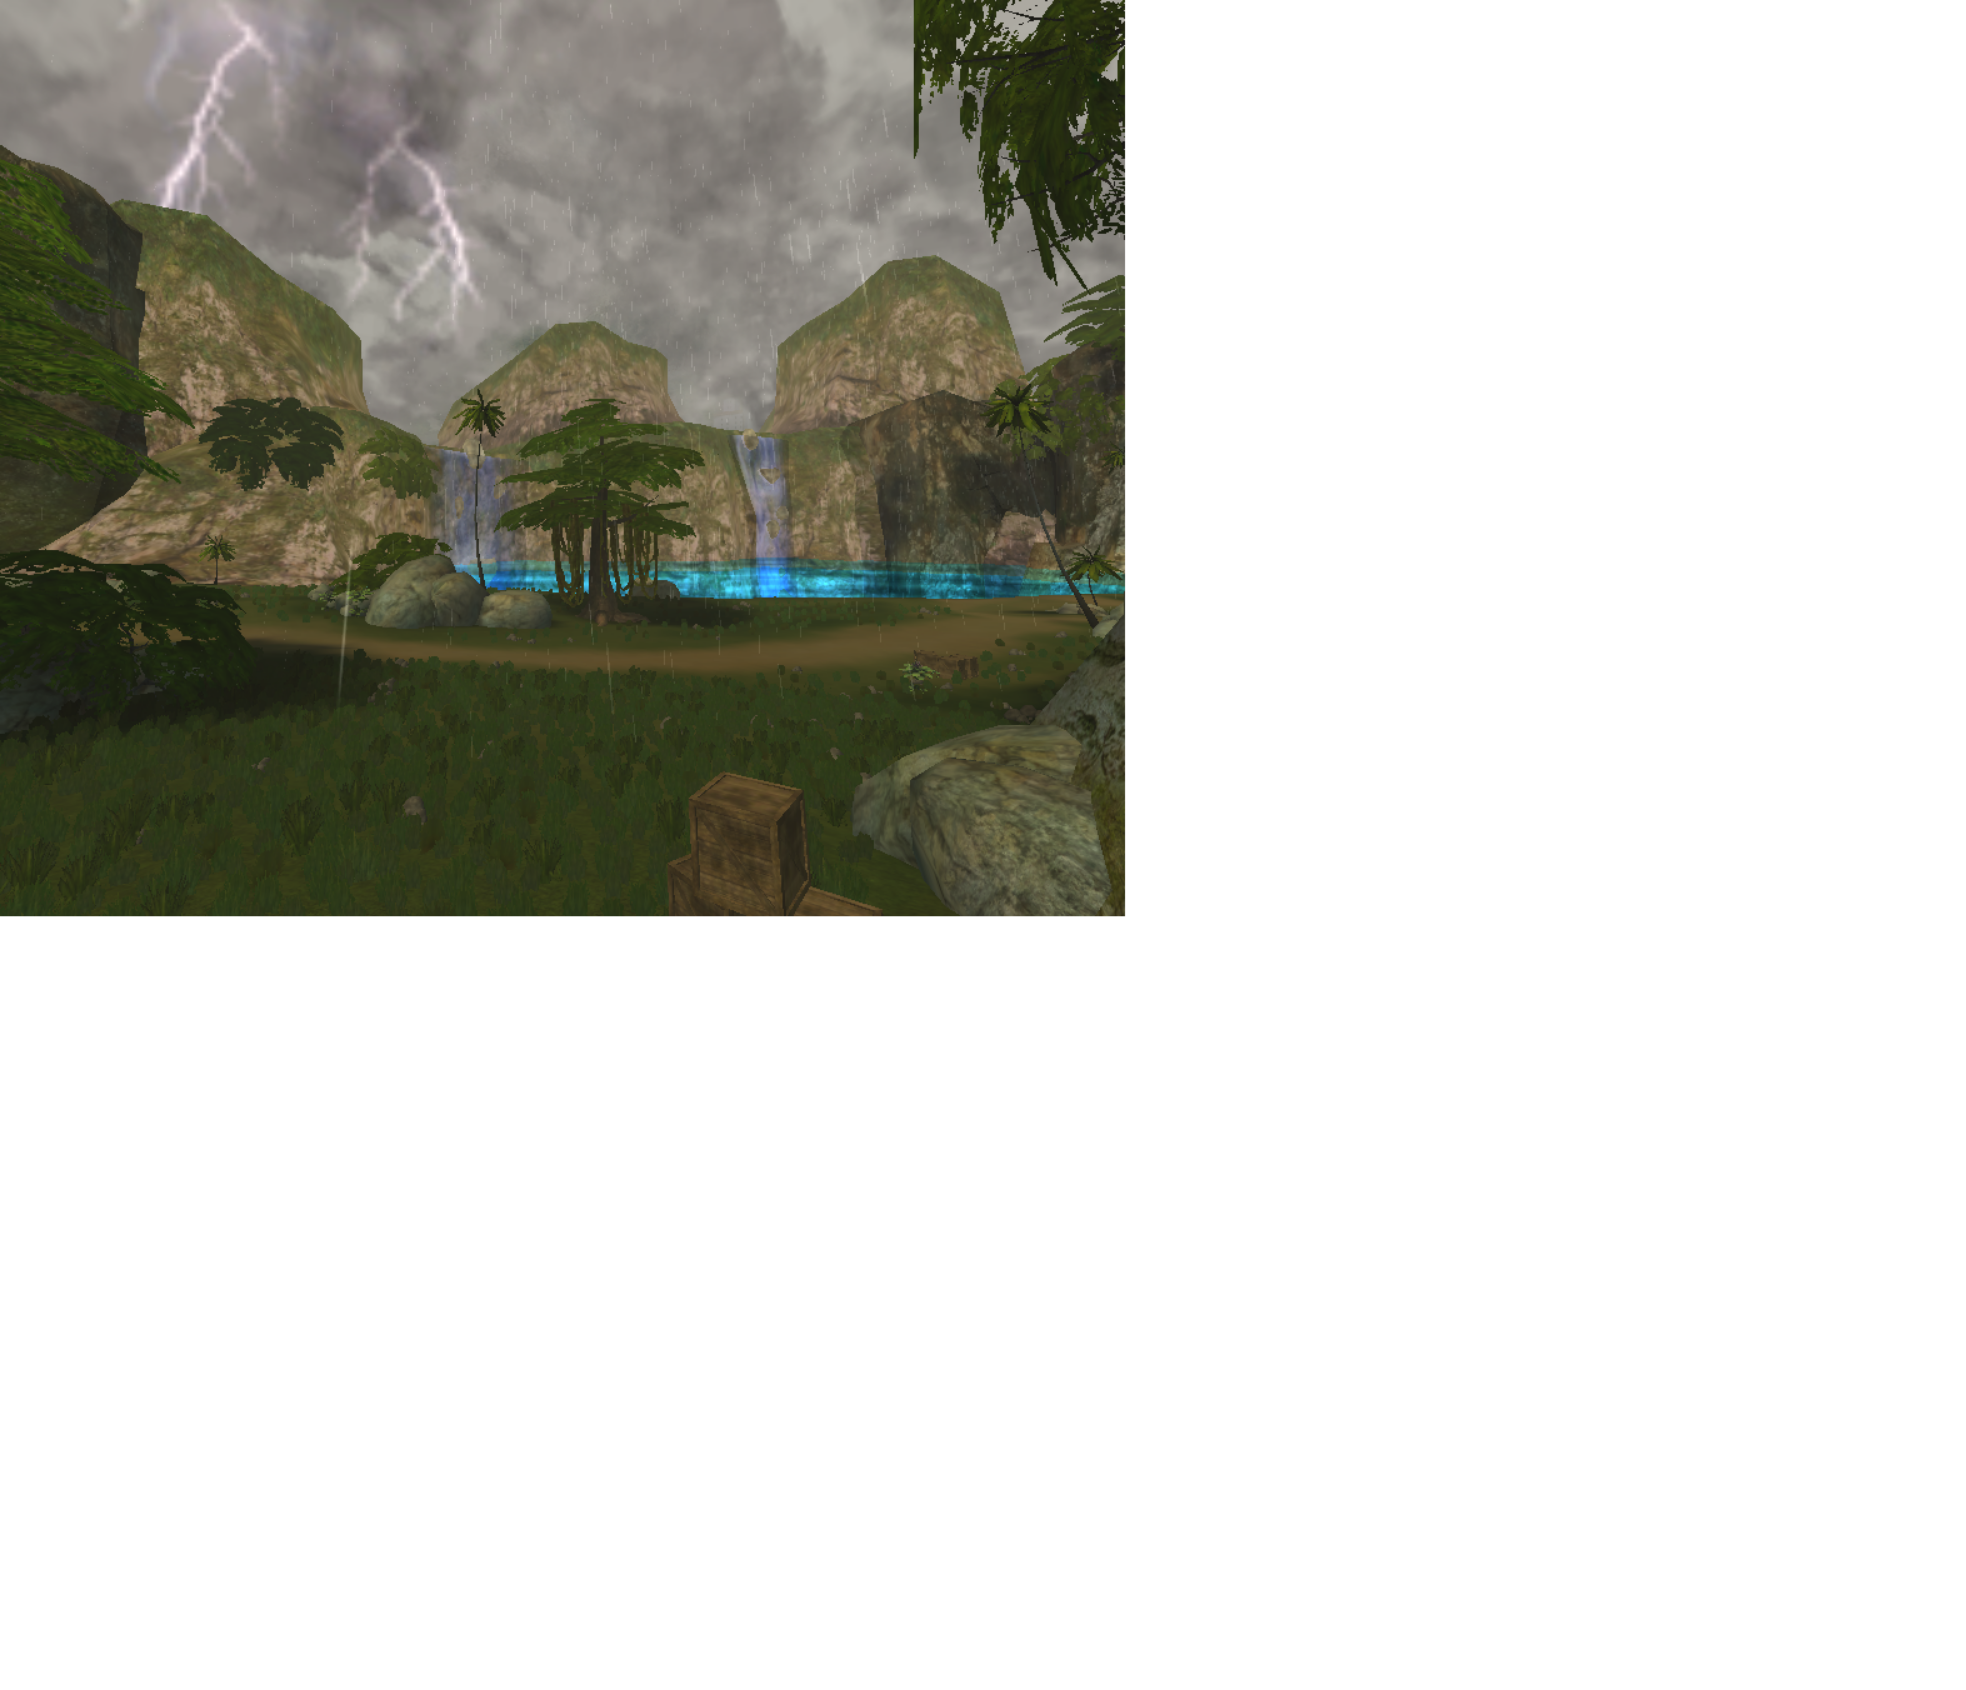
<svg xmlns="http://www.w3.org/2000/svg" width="1966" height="1690">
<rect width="100%" height="100%" fill="#fff"/>
<image href="1.png" x="0" y="0" width="1126" height="917"/>
</svg>
